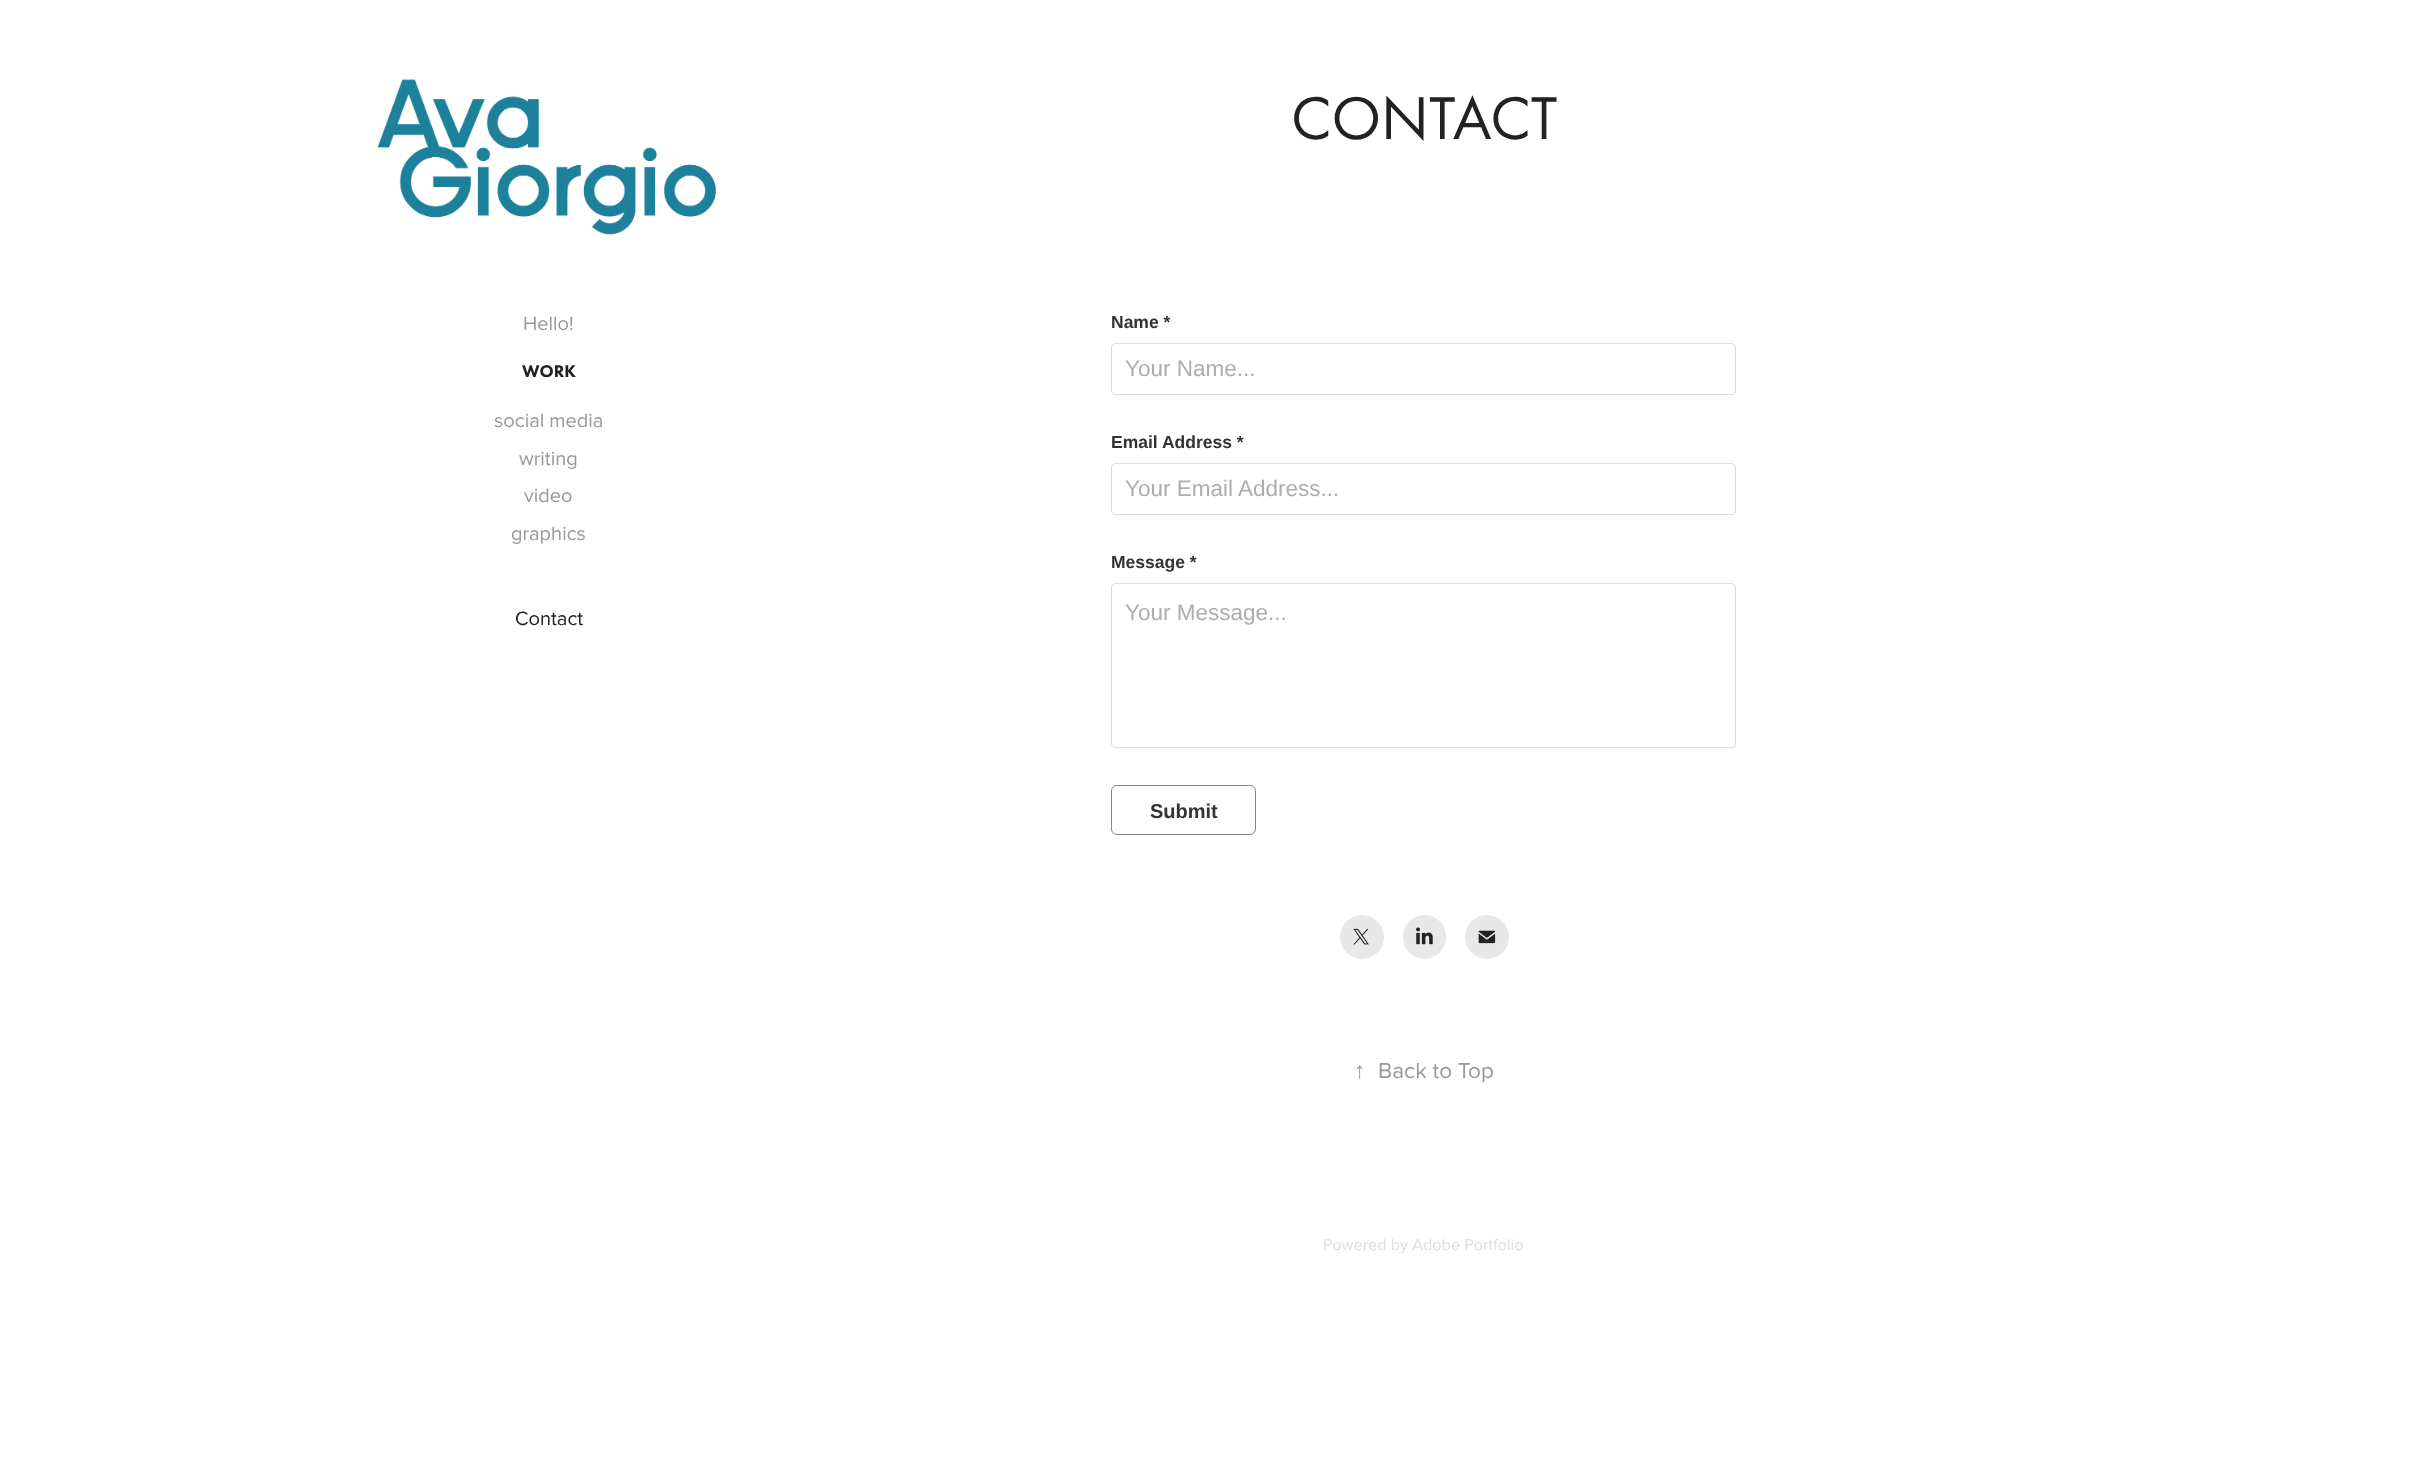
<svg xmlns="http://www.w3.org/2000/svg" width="2410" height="1467">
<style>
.a{font:20px Proxima Nova;fill:#999}
.b{font:900 17.5px Futura PT;fill:#222}
.c{font:20px Proxima Nova;fill:#222}
.d{font:62.5px Futura PT;fill:#222}
.e{font:bold 17.5px Liberation Sans;fill:#333}
.f{font:22.5px Liberation Sans;fill:#adadad}
.g{font:bold 20px Liberation Sans;fill:#333}
.h{font:22.5px Liberation Serif;fill:#999}
.i{font:22.5px Proxima Nova;fill:#999}
.j{font:16.25px Proxima Nova;fill:#ddd}
</style>
<rect width="100%" height="100%" fill="#fff"/>
<image href="1.png" x="377" y="79" width="340" height="156"/>
<rect fill="none" stroke="#ddd" x="1111.5" y="343.5" width="624" height="51" rx="3.5"/>
<rect fill="none" stroke="#ddd" x="1111.5" y="463.5" width="624" height="51" rx="3.5"/>
<rect fill="none" stroke="#ddd" x="1111.5" y="583.5" width="624" height="164" rx="3.5"/>
<rect fill="none" stroke="#858585" x="1111.5" y="785.5" width="144" height="49" rx="5.5"/>
<circle fill="#e8e8e8" cx="1362" cy="937" r="22"/>
<image href="2.png" x="1353" y="928" width="16" height="17"/>
<rect fill="#e8e8e8" x="1403" y="915" width="43" height="44" rx="21.5"/>
<image href="3.png" x="1416" y="927" width="17" height="18"/>
<circle fill="#e8e8e8" cx="1487" cy="937" r="22"/>
<image href="4.png" x="1478" y="930" width="18" height="14"/>
<text class="a" x="523" y="330">Hello!</text>
<text class="b" x="522" y="377">WORK</text>
<text class="a" x="494" y="427">social media</text>
<text class="a" x="519" y="465">writing</text>
<text class="a" x="524" y="502">video</text>
<text class="a" x="511" y="540">graphics</text>
<text class="c" x="515" y="625">Contact</text>
<text class="d" x="1291" y="139">CONTACT</text>
<text class="e" x="1111" y="328">Name *</text>
<text class="f" x="1125" y="376">Your Name...</text>
<text class="e" x="1111" y="448">Email Address *</text>
<text class="f" x="1125" y="496">Your Email Address...</text>
<text class="e" x="1111" y="568">Message *</text>
<text class="f" x="1125" y="620">Your Message...</text>
<text class="g" x="1150" y="818">Submit</text>
<text class="h" x="1354" y="1078">↑</text>
<text class="i" x="1378" y="1078">Back to Top</text>
<text class="j" x="1323" y="1250">Powered by Adobe Portfolio</text>
</svg>
